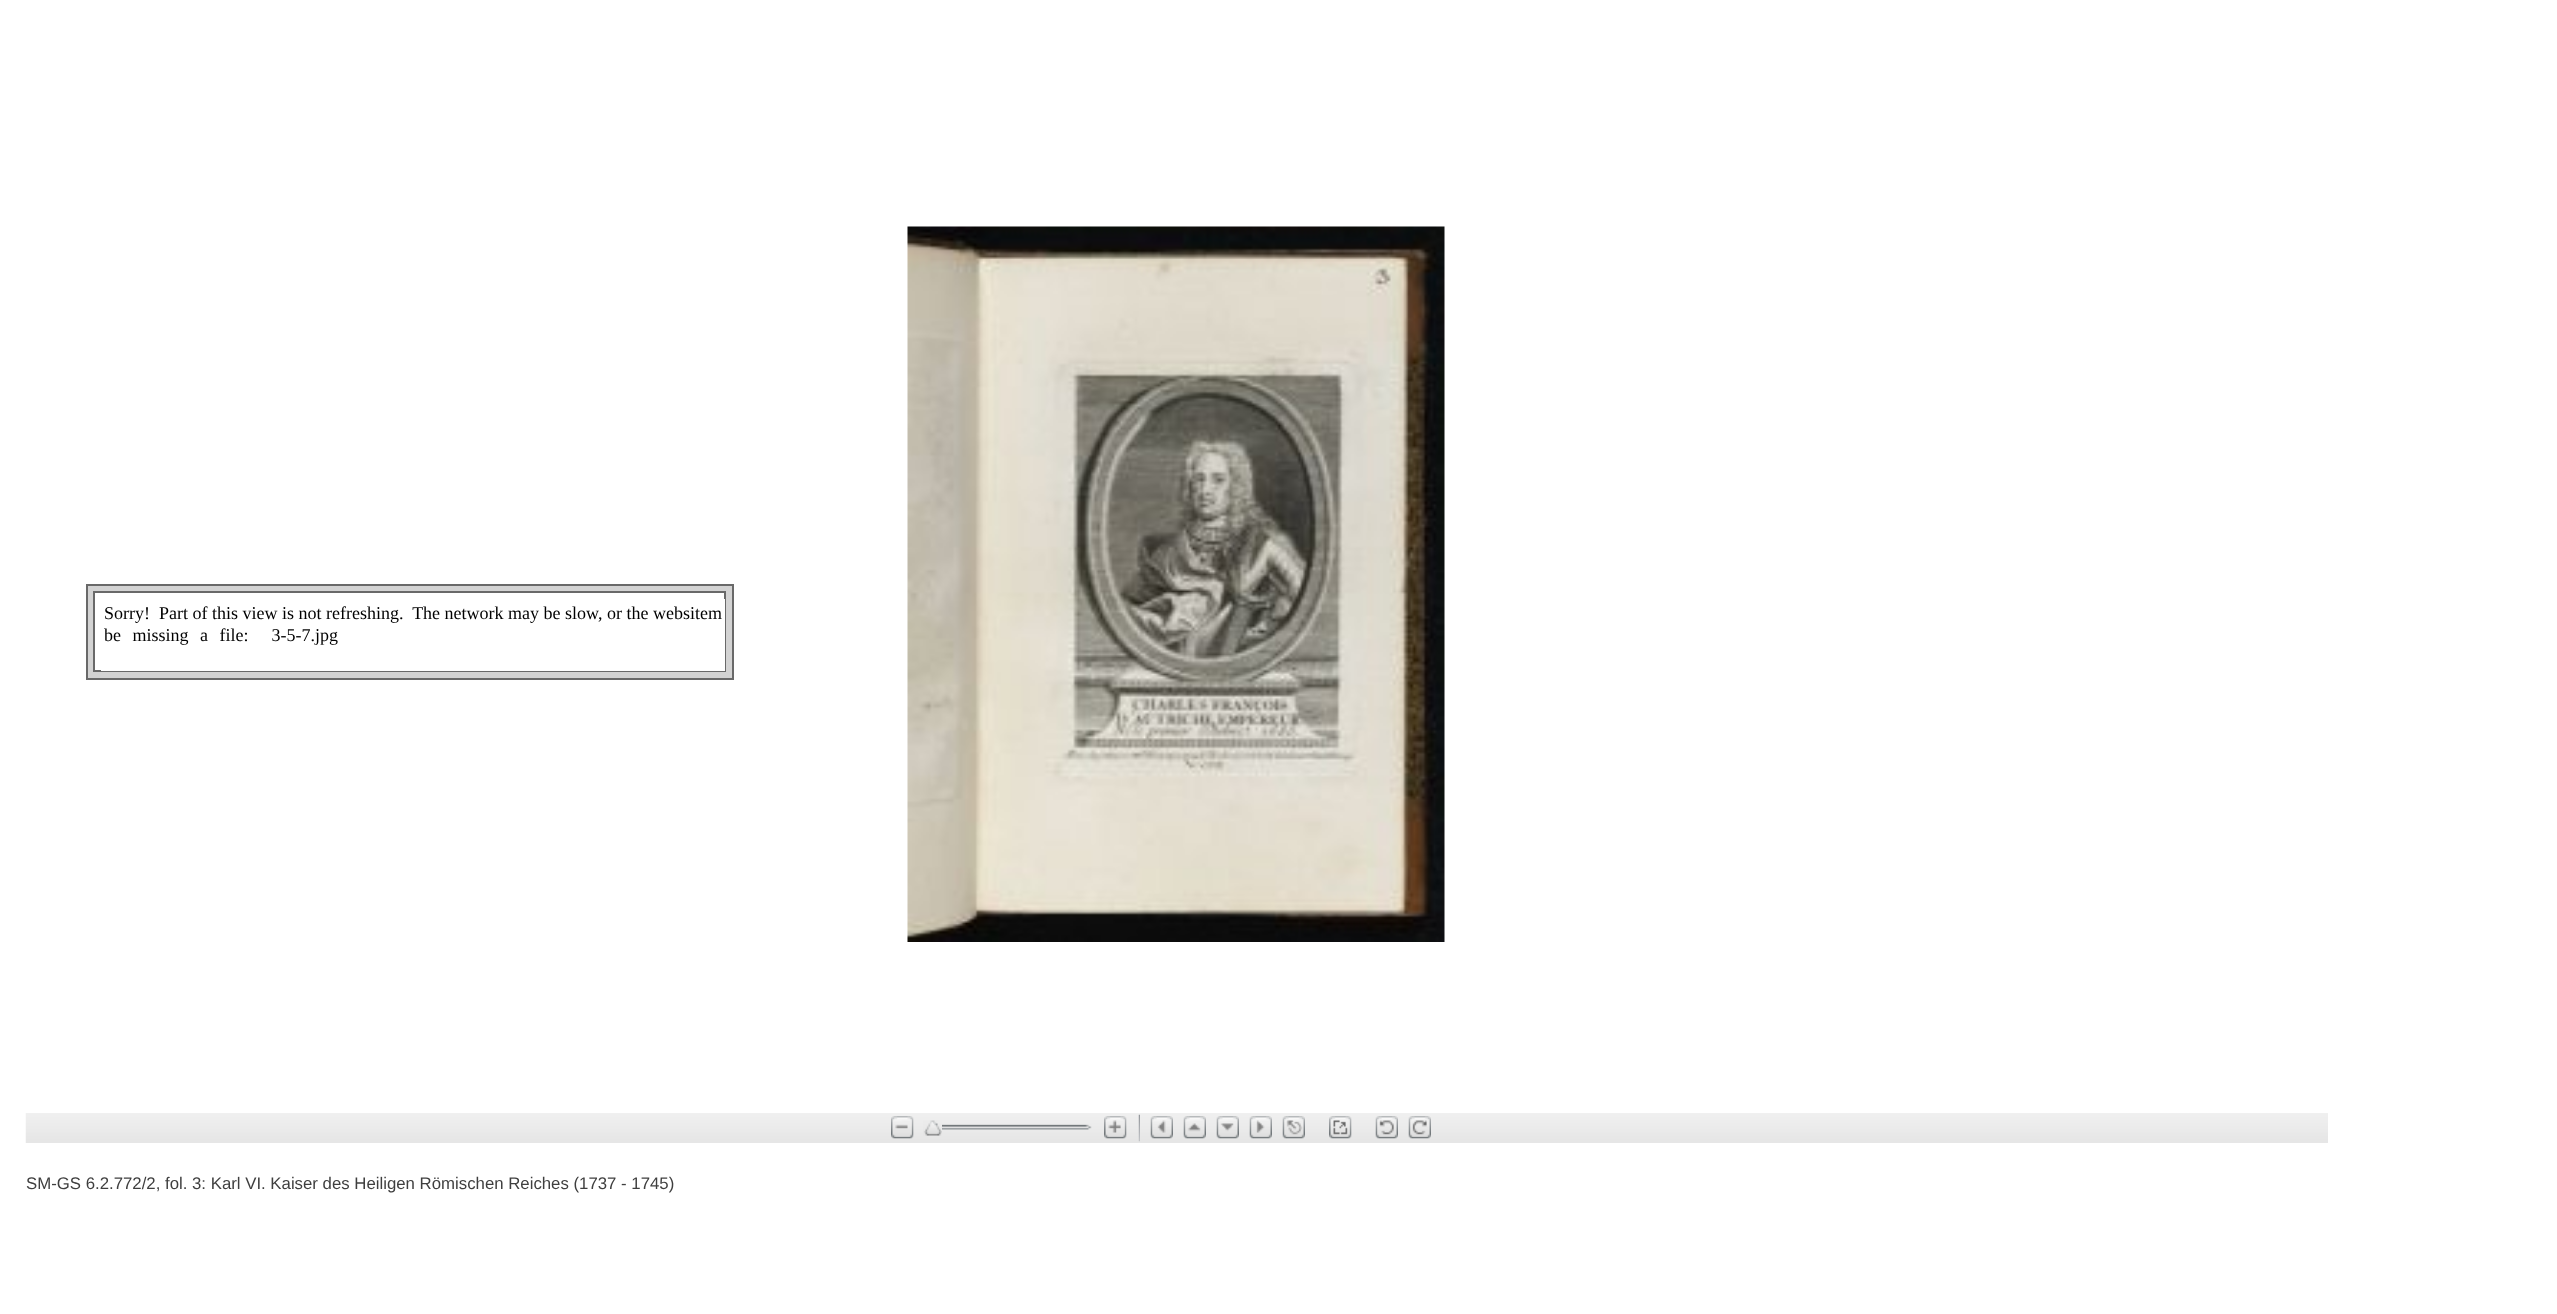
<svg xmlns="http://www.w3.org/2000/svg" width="2557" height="1314">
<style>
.a{font:18px Liberation Serif;fill:#000}
.b{font:16.8px Liberation Sans;fill:#3f3f3f}
</style>
<rect width="100%" height="100%" fill="#fff"/>
<path fill="#d3d3d3" stroke="#696969" stroke-width="2" d="M87 585h646v94H87z"/>
<path fill="#fff" stroke="#696969" stroke-width="2" d="M94 592h631v79H94z"/>
<path fill="#fff" d="M101 599h624v72H101z"/>
<image href="1.png" x="907" y="226" width="538" height="716"/>
<image href="2.png" x="25" y="1113" width="2303" height="30"/>
<image href="3.png" x="891" y="1116" width="23" height="23"/>
<image href="4.png" x="923" y="1120" width="19" height="16"/>
<image href="5.png" x="942" y="1124" width="150" height="6"/>
<image href="6.png" x="1104" y="1116" width="23" height="23"/>
<image href="7.png" x="1138" y="1114" width="2" height="28"/>
<image href="8.png" x="1150" y="1116" width="23" height="23"/>
<image href="9.png" x="1183" y="1116" width="23" height="23"/>
<image href="10.png" x="1216" y="1116" width="23" height="23"/>
<image href="11.png" x="1249" y="1116" width="23" height="23"/>
<image href="12.png" x="1282" y="1116" width="23" height="23"/>
<image href="13.png" x="1329" y="1116" width="23" height="23"/>
<image href="14.png" x="1375" y="1116" width="23" height="23"/>
<image href="15.png" x="1408" y="1116" width="23" height="23"/>
<text class="a" xml:space="preserve" x="104" y="619">Sorry!  Part of this view is not refreshing.  The network may be slow, or the websitem</text>
<text class="a" xml:space="preserve" x="104" y="641" word-spacing="7">be missing a file:  3-5-7.jpg</text>
<text class="b" x="26" y="1189">SM-GS 6.2.772/2, fol. 3: Karl VI. Kaiser des Heiligen Römischen Reiches (1737 - 1745)</text>
</svg>
